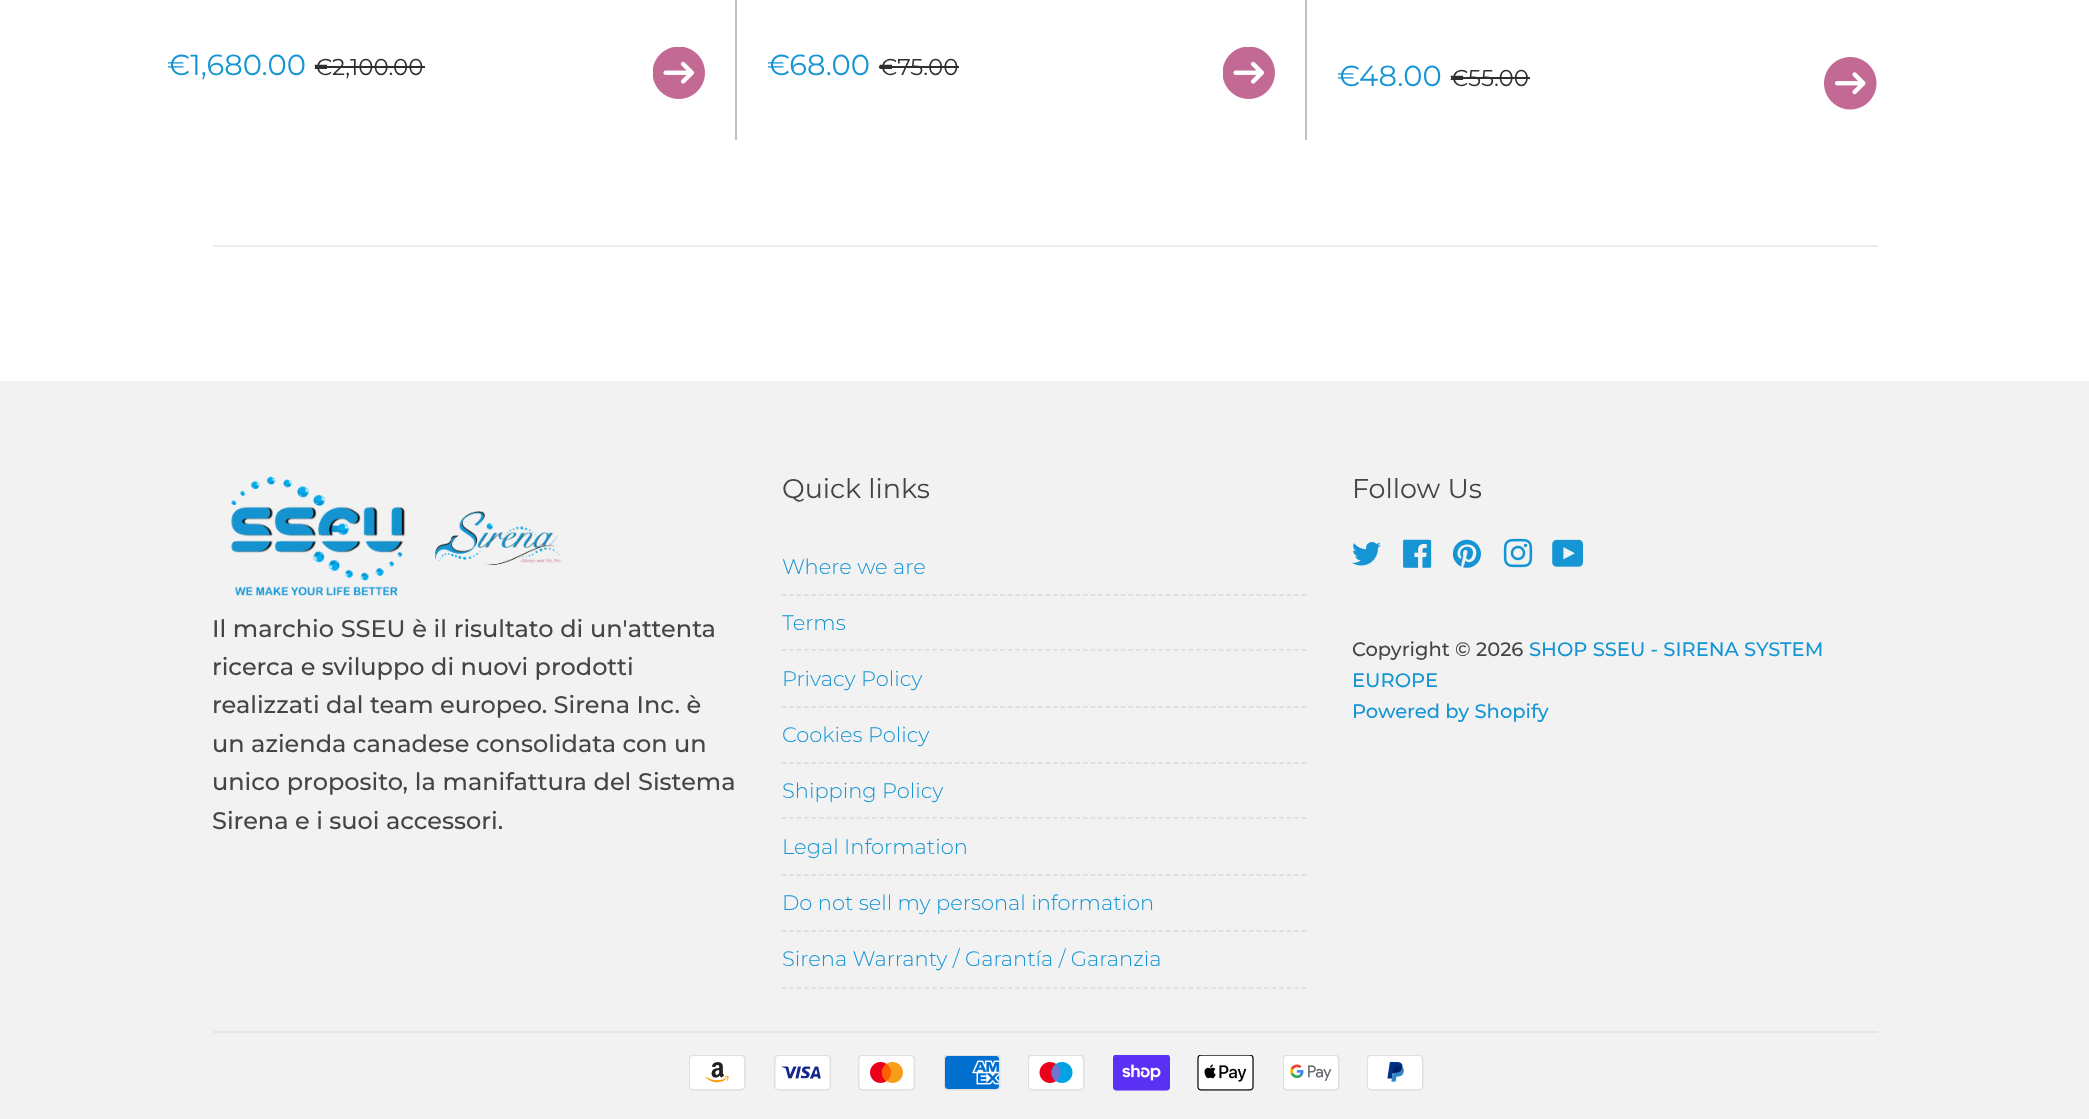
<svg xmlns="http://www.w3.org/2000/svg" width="2089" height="1119">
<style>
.a{font:29px Montserrat;fill:#1595d4}
.b{font:23px Montserrat;fill:#2f2f2f}
.c{font:500 24px Montserrat;fill:#454545}
.d{font:27px Montserrat;fill:#454545}
.e{font:300 21px Montserrat;fill:#1595d4}
.f{font:500 19.5px Montserrat;fill:#454545}
.g{font:500 19.5px Montserrat;fill:#1595d4}
</style>
<rect width="100%" height="100%" fill="#fff"/>
<path fill="#c0c0c0" d="M735 0h2v140H735z"/>
<path fill="#2f2f2f" d="M315 66h110v2H315z"/>
<image href="1.png" x="653" y="47" width="52" height="52"/>
<path fill="#c0c0c0" d="M1305 0h2v140H1305z"/>
<path fill="#2f2f2f" d="M879 66h80v2H879z"/>
<image href="1.png" x="1223" y="47" width="52" height="52"/>
<path fill="#2f2f2f" d="M1451 77h79v2H1451z"/>
<image href="2.png" x="1824" y="57" width="53" height="53"/>
<path fill="#ececec" d="M213 245h1665v2H213z"/>
<path fill="#f2f2f2" d="M0 381h2089v738H0z"/>
<image href="3.png" x="231" y="476" width="330" height="120"/>
<path fill="none" stroke="#dadada" stroke-width="1.5" stroke-dasharray="4.5 3.04" d="M781.5 595h525"/>
<path fill="none" stroke="#dadada" stroke-width="1.5" stroke-dasharray="4.5 3.04" d="M781.5 650h525"/>
<path fill="none" stroke="#dadada" stroke-width="1.5" stroke-dasharray="4.5 3.04" d="M781.5 707h525"/>
<path fill="none" stroke="#dadada" stroke-width="1.5" stroke-dasharray="4.5 3.04" d="M781.5 763h525"/>
<path fill="none" stroke="#dadada" stroke-width="1.5" stroke-dasharray="4.5 3.04" d="M781.5 818h525"/>
<path fill="none" stroke="#dadada" stroke-width="1.5" stroke-dasharray="4.5 3.04" d="M781.5 875h525"/>
<path fill="none" stroke="#dadada" stroke-width="1.5" stroke-dasharray="4.5 3.04" d="M781.5 931h525"/>
<path fill="none" stroke="#dadada" stroke-width="1.5" stroke-dasharray="4.5 3.04" d="M781.5 988h525"/>
<image href="4.png" x="1352" y="542" width="29" height="24"/>
<image href="5.png" x="1403" y="539" width="29" height="29"/>
<image href="6.png" x="1452" y="539" width="29" height="29"/>
<image href="7.png" x="1503" y="538" width="30" height="30"/>
<image href="8.png" x="1552" y="539" width="31" height="28"/>
<path fill="#e5e5e5" d="M213 1031h1665v2H213z"/>
<image href="9.png" x="689" y="1055" width="57" height="36"/>
<image href="10.png" x="774" y="1055" width="57" height="36"/>
<image href="11.png" x="858" y="1055" width="57" height="36"/>
<image href="12.png" x="944" y="1055" width="57" height="36"/>
<image href="13.png" x="1028" y="1055" width="57" height="36"/>
<image href="14.png" x="1113" y="1055" width="57" height="36"/>
<image href="15.png" x="1197" y="1055" width="57" height="36"/>
<image href="16.png" x="1283" y="1055" width="57" height="36"/>
<image href="17.png" x="1367" y="1055" width="57" height="36"/>
<text class="a" x="167" y="75">€1,680.00</text>
<text class="b" x="314" y="75">€2,100.00</text>
<text class="a" x="767" y="75">€68.00</text>
<text class="b" x="879" y="75">€75.00</text>
<text class="a" x="1337" y="86">€48.00</text>
<text class="b" x="1450" y="86">€55.00</text>
<text class="c" x="212" y="637" word-spacing="0.25">Il marchio SSEU è il risultato di un'attenta</text>
<text class="c" x="212" y="675">ricerca e sviluppo di nuovi prodotti</text>
<text class="c" x="212" y="713">realizzati dal team europeo. Sirena Inc. è</text>
<text class="c" x="212" y="752">un azienda canadese consolidata con un</text>
<text class="c" x="212" y="790" word-spacing="0.25">unico proposito, la manifattura del Sistema</text>
<text class="c" x="212" y="829">Sirena e i suoi accessori.</text>
<text class="d" x="782" y="498">Quick links</text>
<text class="e" x="782" y="574">Where we are</text>
<text class="e" x="782" y="630">Terms</text>
<text class="e" x="782" y="686">Privacy Policy</text>
<text class="e" x="782" y="742">Cookies Policy</text>
<text class="e" x="782" y="798">Shipping Policy</text>
<text class="e" x="782" y="854">Legal Information</text>
<text class="e" x="782" y="910">Do not sell my personal information</text>
<text class="e" x="782" y="966">Sirena Warranty / Garantía / Garanzia</text>
<text class="d" x="1352" y="498">Follow Us</text>
<text class="f" x="1352" y="656">Copyright © 2026</text>
<text class="g" x="1529" y="656">SHOP SSEU - SIRENA SYSTEM</text>
<text class="g" x="1352" y="687">EUROPE</text>
<text class="g" x="1352" y="718">Powered by Shopify</text>
</svg>
